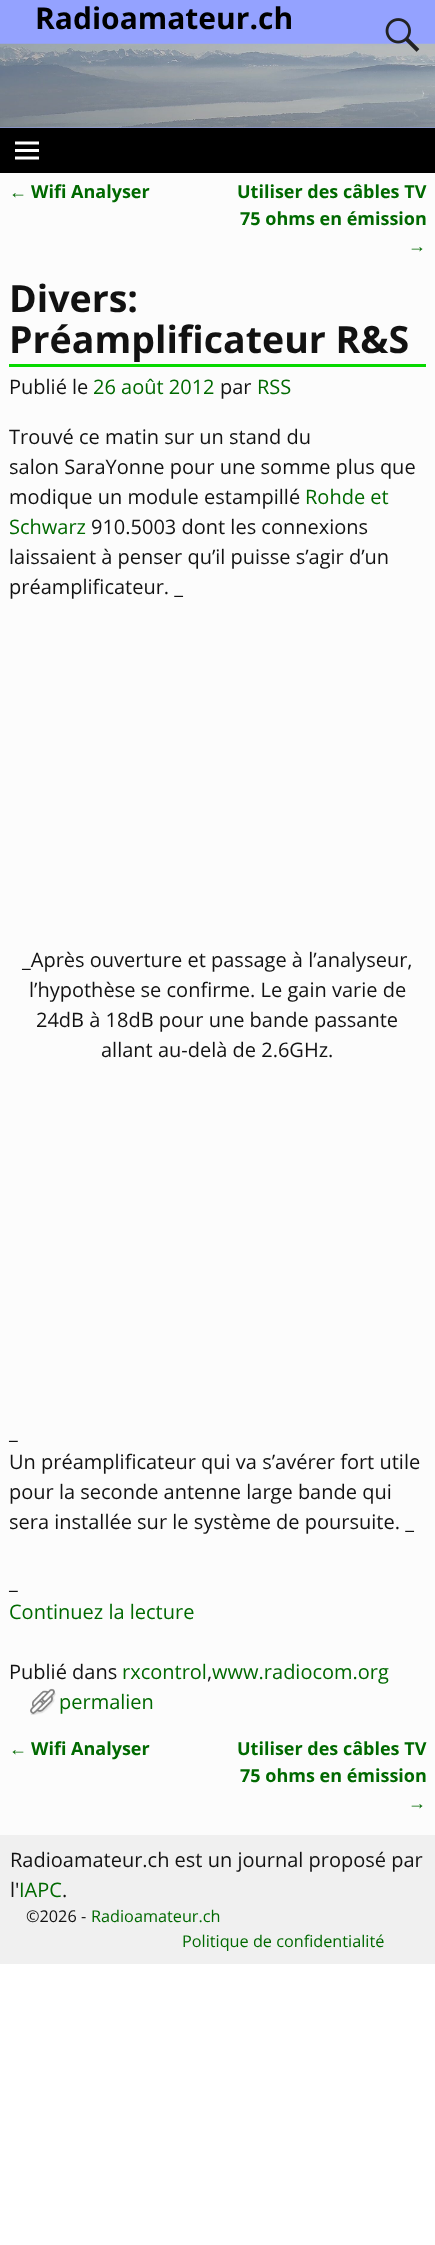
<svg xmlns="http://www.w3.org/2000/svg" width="435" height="2245">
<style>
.a{font:bold 30px Open Sans;fill:#000}
.b{font:18px Liberation Sans;fill:#006900}
.c{font:bold 18px Open Sans;fill:#006900}
.d{font:bold 37.5px Open Sans;fill:#121212}
.e{font:20px Open Sans;fill:#121212}
.f{font:20px Open Sans;fill:#006900}
.g{font:16.25px Open Sans;fill:#121212}
.h{font:16.25px Open Sans;fill:#006900}
</style>
<rect width="100%" height="100%" fill="#fff"/>
<path fill="#fcfcfc" d="M0 173h435v1662H0z"/>
<path fill="#94a2ff" d="M0 0h435v128H0z"/>
<image href="2.png" x="0" y="43" width="435" height="85"/>
<image href="1.png" x="385" y="18" width="35" height="34"/>
<path fill="#000" d="M0 128h435v45H0z"/>
<image href="3.png" x="15" y="141" width="24" height="19"/>
<path fill="#07d900" d="M9 364h417v3H9z"/>
<image href="4.png" x="30" y="1688" width="26" height="27"/>
<path fill="#f0f0f0" d="M0 1835h435v129H0z"/>
<text class="a" x="35" y="29">Radioamateur.ch</text>
<text class="b" x="9" y="198">←</text>
<text class="c" x="31" y="198">Wifi Analyser</text>
<text class="c" x="237" y="198">Utiliser des câbles TV</text>
<text class="c" x="240" y="225">75 ohms en émission</text>
<text class="b" x="408" y="252">→</text>
<text class="d" x="9" y="312">Divers:</text>
<text class="d" x="9" y="353">Préamplificateur R&amp;S</text>
<text class="e" x="9" y="394">Publié le</text>
<text class="f" x="93" y="394">26 août 2012</text>
<text class="e" x="220" y="394">par</text>
<text class="f" x="257" y="394">RSS</text>
<text class="e" x="9" y="444">Trouvé ce matin sur un stand du</text>
<text class="e" x="9" y="474">salon SaraYonne pour une somme plus que</text>
<text class="e" x="9" y="504">modique un module estampillé</text>
<text class="f" x="305" y="504">Rohde et</text>
<text class="f" x="9" y="534">Schwarz</text>
<text class="e" x="91" y="534">910.5003 dont les connexions</text>
<text class="e" x="9" y="564">laissaient à penser qu’il puisse s’agir d’un</text>
<text class="e" x="9" y="594">préamplificateur. _</text>
<text class="e" x="22" y="967">_Après ouverture et passage à l’analyseur,</text>
<text class="e" x="29" y="997">l’hypothèse se confirme. Le gain varie de</text>
<text class="e" x="36" y="1027">24dB à 18dB pour une bande passante</text>
<text class="e" x="101" y="1057">allant au-delà de 2.6GHz.</text>
<text class="e" x="9" y="1439">_</text>
<text class="e" x="9" y="1469">Un préamplificateur qui va s’avérer fort utile</text>
<text class="e" x="9" y="1499">pour la seconde antenne large bande qui</text>
<text class="e" x="9" y="1529">sera installée sur le système de poursuite. _</text>
<text class="e" x="9" y="1589">_</text>
<text class="f" x="9" y="1619">Continuez la lecture</text>
<text class="e" x="9" y="1679">Publié dans</text>
<text class="f" x="122" y="1679">rxcontrol www.radiocom.org</text>
<text class="e" x="207" y="1679">,</text>
<text class="f" x="59" y="1709">permalien</text>
<text class="b" x="9" y="1755">←</text>
<text class="c" x="31" y="1755">Wifi Analyser</text>
<text class="c" x="237" y="1755">Utiliser des câbles TV</text>
<text class="c" x="240" y="1782">75 ohms en émission</text>
<text class="b" x="408" y="1809">→</text>
<text class="e" x="10" y="1867">Radioamateur.ch est un journal proposé par</text>
<text class="e" x="10" y="1897">l'</text>
<text class="f" x="19" y="1897">IAPC</text>
<text class="e" x="62" y="1897">.</text>
<text class="g" x="26" y="1922">©2026 -</text>
<text class="h" x="91" y="1922">Radioamateur.ch</text>
<text class="h" x="182" y="1947">Politique de confidentialité</text>
</svg>
